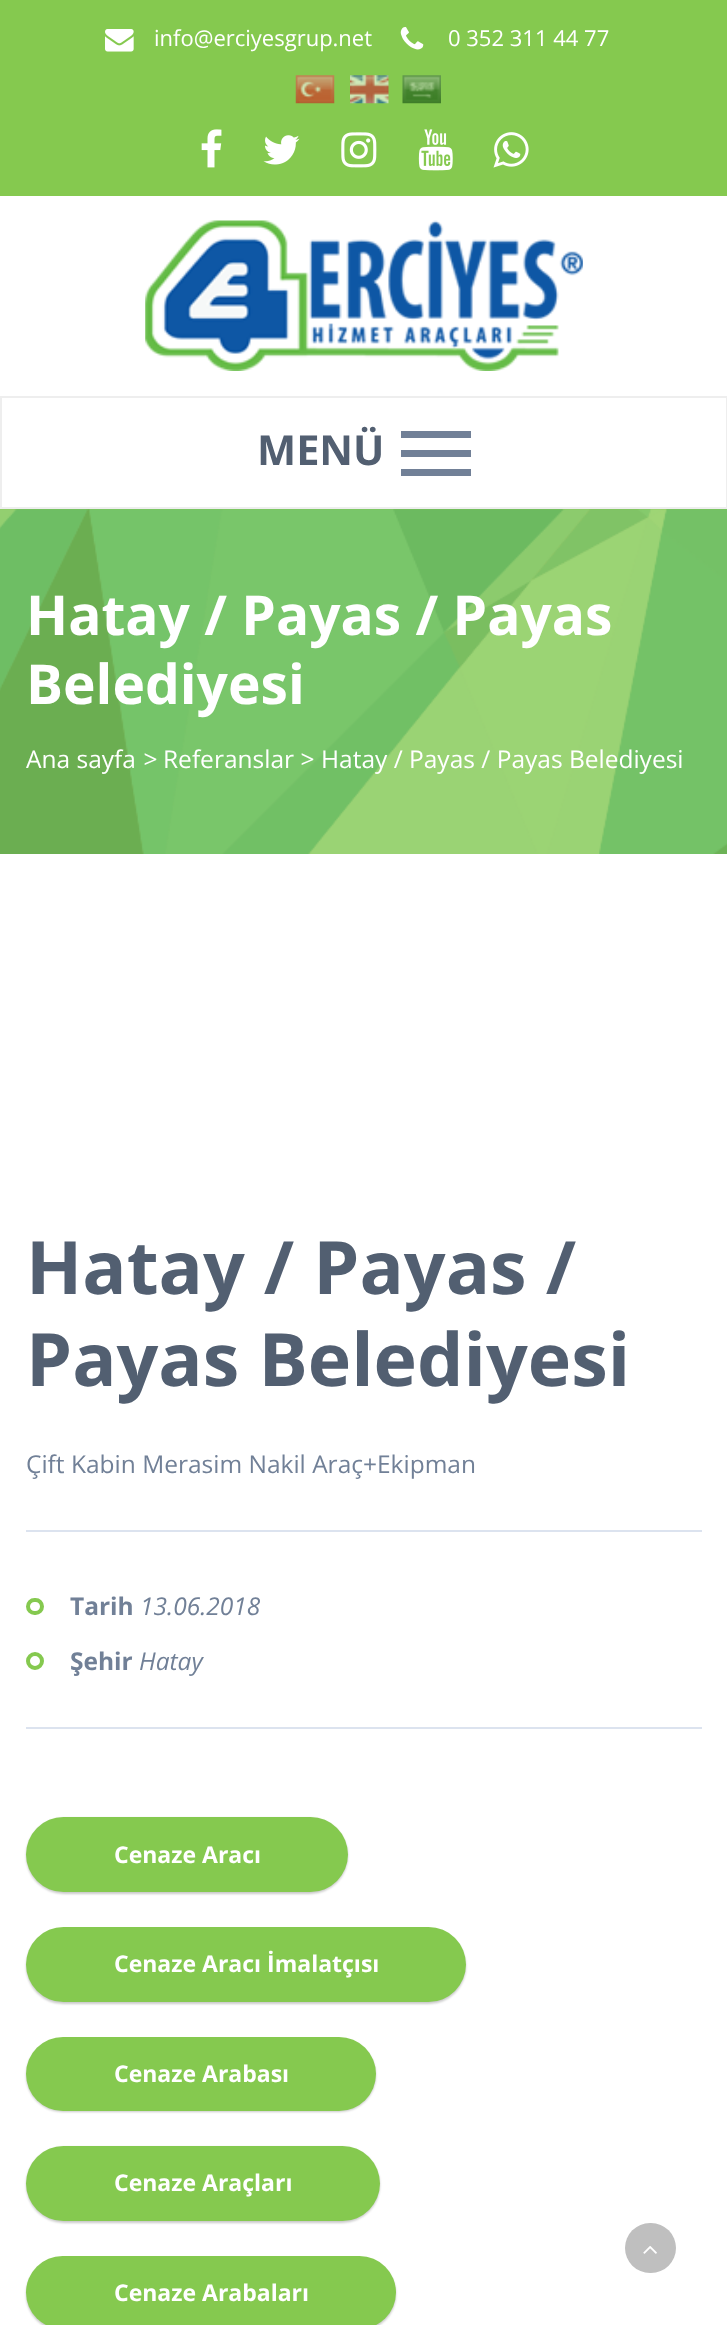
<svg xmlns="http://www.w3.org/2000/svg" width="727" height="2325">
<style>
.a{font:22px Open Sans;fill:#fff}
.b{font:bold 41.5px Open Sans;fill:#525f71}
.c{font:bold 55.1px Open Sans;fill:#fff}
.d{font:24.5px Open Sans;fill:#fff}
.e{font:italic 24.5px Open Sans;fill:#fff}
.f{font:bold 73.5px Open Sans;fill:#525f71}
.g{font:24.5px Open Sans;fill:#718097}
.h{font:bold 24.5px Open Sans;fill:#718097}
.i{font:italic 24.5px Open Sans;fill:#718097}
.j{font:bold 23px Open Sans;fill:#fff}
</style>
<rect width="100%" height="100%" fill="#fff"/>
<path fill="#85c94f" d="M0 0h727v196H0z"/>
<image href="1.png" x="105" y="29" width="29" height="23"/>
<image href="2.png" x="400" y="26" width="24" height="24"/>
<image href="3.png" x="295" y="75" width="40" height="29"/>
<image href="4.png" x="350" y="75" width="39" height="29"/>
<image href="5.png" x="402" y="75" width="39" height="29"/>
<image href="6.png" x="201" y="129" width="21" height="39"/>
<image href="7.png" x="263" y="135" width="37" height="30"/>
<image href="8.png" x="341" y="132" width="36" height="36"/>
<image href="9.png" x="418" y="129" width="35" height="42"/>
<image href="10.png" x="493" y="132" width="36" height="36"/>
<image href="11.png" x="145" y="220" width="438" height="151"/>
<path fill="none" stroke="#eee" stroke-width="2" d="M1 397h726v111H1z"/>
<path fill="#718097" d="M401 431h70v7H401z"/>
<path fill="#718097" d="M401 450h70v7H401z"/>
<path fill="#718097" d="M401 469h70v7H401z"/>
<path fill="#85c94f" d="M0 509h727v345H0z"/>
<image href="12.png" x="0" y="509" width="727" height="345"/>
<path fill="#dce3ef" d="M26 1530h676v2H26z"/>
<path fill="#dce3ef" d="M26 1727h676v2H26z"/>
<rect fill="none" stroke="#85c94f" stroke-width="4" x="28" y="1600" width="14" height="13" rx="6.5"/>
<circle fill="none" stroke="#85c94f" stroke-width="4" cx="35" cy="1661" r="7"/>
<rect fill="#00000036" filter="blur(1px)" x="26" y="1818" width="322" height="76" rx="38"/>
<rect fill="#85c94f" x="26" y="1817" width="322" height="75" rx="37.5"/>
<rect fill="#00000036" filter="blur(1px)" x="26" y="1929" width="440" height="75" rx="37.5"/>
<rect fill="#85c94f" x="26" y="1927" width="440" height="75" rx="37.5"/>
<rect fill="#00000036" filter="blur(1px)" x="26" y="2039" width="350" height="73" rx="36.5"/>
<rect fill="#85c94f" x="26" y="2037" width="350" height="74" rx="37"/>
<rect fill="#00000036" filter="blur(1px)" x="26" y="2147" width="354" height="76" rx="38"/>
<rect fill="#85c94f" x="26" y="2146" width="354" height="75" rx="37.5"/>
<rect fill="#00000036" filter="blur(1px)" x="26" y="2258" width="370" height="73" rx="36.5"/>
<rect fill="#85c94f" x="26" y="2256" width="370" height="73" rx="36.5"/>
<rect fill="#bfbfbf" x="625" y="2223" width="51" height="50" rx="25"/>
<image href="13.png" x="643" y="2246" width="14" height="8"/>
<text class="a" x="154" y="46">info@erciyesgrup.net</text>
<text class="a" x="448" y="46">0 352 311 44 77</text>
<text class="b" x="257" y="465">MENÜ</text>
<text class="c" x="26" y="635">Hatay / Payas / Payas</text>
<text class="c" x="26" y="704">Belediyesi</text>
<text class="d" x="26" y="768">Ana sayfa</text>
<text class="e" x="143" y="768">&gt;</text>
<text class="d" x="163" y="768">Referanslar</text>
<text class="e" x="300" y="768">&gt;</text>
<text class="d" x="321" y="768">Hatay / Payas / Payas Belediyesi</text>
<text class="f" x="26" y="1294">Hatay / Payas /</text>
<text class="f" x="26" y="1386">Payas Belediyesi</text>
<text class="g" x="26" y="1473">Çift Kabin Merasim Nakil Araç+Ekipman</text>
<text class="h" x="70" y="1615">Tarih</text>
<text class="i" x="140" y="1615">13.06.2018</text>
<text class="h" x="70" y="1670">Şehir</text>
<text class="i" x="139" y="1670">Hatay</text>
<text class="j" x="114" y="1863">Cenaze Aracı</text>
<text class="j" x="114" y="1972">Cenaze Aracı İmalatçısı</text>
<text class="j" x="114" y="2082">Cenaze Arabası</text>
<text class="j" x="114" y="2191">Cenaze Araçları</text>
<text class="j" x="114" y="2301">Cenaze Arabaları</text>
</svg>
